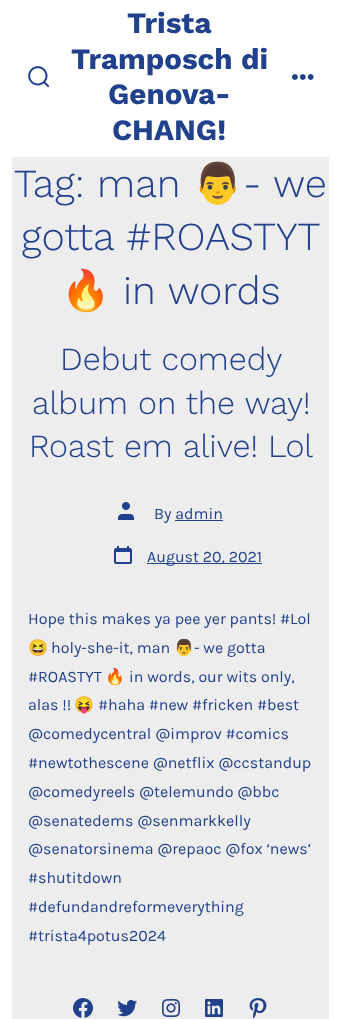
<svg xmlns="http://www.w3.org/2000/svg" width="341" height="1019">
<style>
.a{font:bold 29.5px Work Sans;fill:#21418c}
.b{font:300 39.75px Work Sans;fill:#21418c}
.c{font:39.75px Noto Color Emoji;fill:#21418c}
.d{font:300 32.25px Work Sans;fill:#21418c}
.e{font:16px Karla;fill:#21418c}
.f{font:16px Noto Color Emoji;fill:#21418c}
</style>
<rect width="100%" height="100%" fill="#ededed"/>
<path fill="#fff" d="M329 0h12v1019H329z"/>
<path fill="#fff" d="M0 0h12v1019H0z"/>
<path fill="#fff" d="M12 0h317v157H12z"/>
<image href="1.png" x="28" y="66" width="21" height="22"/>
<image href="2.png" x="292" y="74" width="22" height="6"/>
<image href="3.png" x="118" y="502" width="16" height="18"/>
<path fill="#21418c" d="M175 520h48v1H175z"/>
<image href="4.png" x="114" y="546" width="18" height="18"/>
<path fill="#21418c" d="M147 563h115v1H147z"/>
<image href="5.png" x="73" y="998" width="20" height="20"/>
<image href="6.png" x="117" y="1000" width="20" height="17"/>
<image href="7.png" x="162" y="999" width="18" height="18"/>
<image href="8.png" x="205" y="999" width="18" height="18"/>
<image href="9.png" x="249" y="998" width="18" height="21"/>
<text class="a" x="127" y="33">Trista</text>
<text class="a" x="71" y="69">Tramposch di</text>
<text class="a" x="108" y="104">Genova-</text>
<text class="a" x="112" y="140">CHANG!</text>
<text class="b" x="14" y="197">Tag: man</text>
<text class="c" x="193" y="197">👨</text>
<text class="b" x="243" y="197">- we</text>
<text class="b" x="21" y="250">gotta #ROASTYT</text>
<text class="c" x="61" y="304">🔥</text>
<text class="b" x="123" y="304">in words</text>
<text class="d" x="60" y="370">Debut comedy</text>
<text class="d" x="32" y="414">album on the way!</text>
<text class="d" x="29" y="457">Roast em alive! Lol</text>
<text class="e" x="154" y="519">By admin</text>
<text class="e" x="147" y="562">August 20, 2021</text>
<text class="e" x="28" y="624">Hope this makes ya pee yer pants! #Lol</text>
<text class="f" x="28" y="653">😆</text>
<text class="e" x="51" y="653">holy-she-it, man</text>
<text class="f" x="174" y="653">👨</text>
<text class="e" x="194" y="653">- we gotta</text>
<text class="e" x="28" y="682">#ROASTYT</text>
<text class="f" x="105" y="682">🔥</text>
<text class="e" x="129" y="682">in words, our wits only,</text>
<text class="e" x="28" y="710">alas !!</text>
<text class="f" x="74" y="710">😝</text>
<text class="e" x="98" y="710">#haha #new #fricken #best</text>
<text class="e" x="28" y="739">@comedycentral @improv #comics</text>
<text class="e" x="28" y="768">#newtothescene @netflix @ccstandup</text>
<text class="e" x="28" y="797">@comedyreels @telemundo @bbc</text>
<text class="e" x="28" y="826">@senatedems @senmarkkelly</text>
<text class="e" x="28" y="854">@senatorsinema @repaoc @fox ‘news’</text>
<text class="e" x="28" y="883">#shutitdown</text>
<text class="e" x="28" y="912">#defundandreformeverything</text>
<text class="e" x="28" y="941">#trista4potus2024</text>
</svg>
